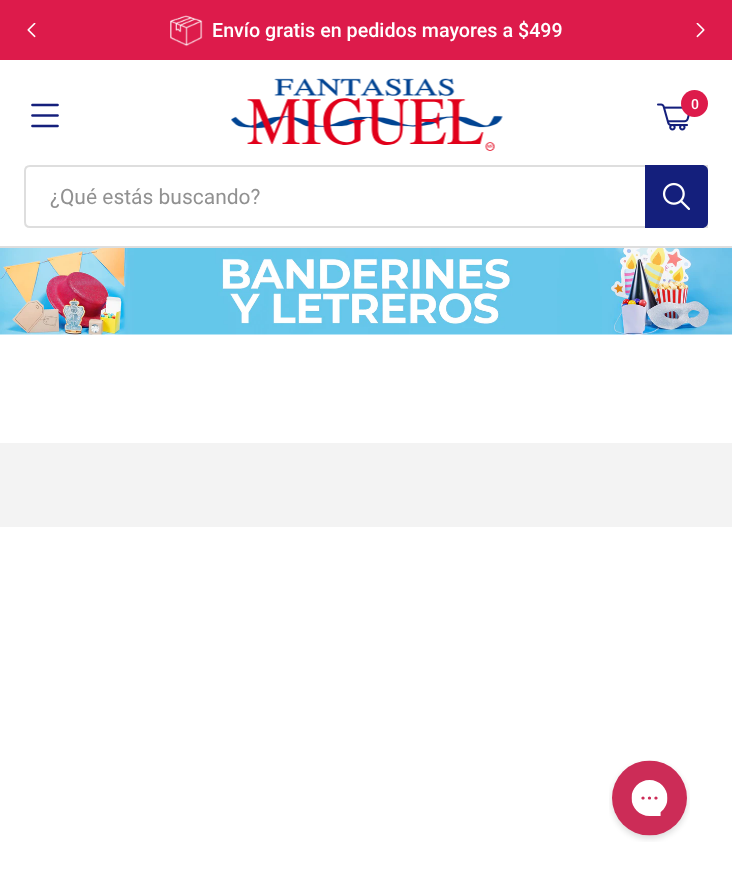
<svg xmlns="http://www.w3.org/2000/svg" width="732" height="875">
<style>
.a{font:500 19.7px Roboto;fill:#fff}
.b{font:500 14px Roboto;fill:#fff}
.c{font:21px Roboto;fill:#919191}
</style>
<rect width="100%" height="100%" fill="#fff"/>
<path fill="#dd1b4b" d="M0 0h732v60H0z"/>
<image href="1.png" x="27" y="23" width="9" height="15"/>
<image href="2.png" x="170" y="15" width="33" height="32"/>
<image href="3.png" x="696" y="23" width="9" height="15"/>
<path fill="#dedede" d="M0 246h732v2H0z"/>
<image href="4.png" x="31" y="103" width="28" height="25"/>
<image href="5.png" x="231" y="78" width="272" height="73"/>
<image href="6.png" x="657" y="103" width="33" height="28"/>
<circle fill="#dd1b4b" cx="694.5" cy="103.5" r="13.5"/>
<path fill="none" stroke="#dedede" stroke-width="2" d="M30 166h677v61h-677c-3 0-5-2-5-5v-51c0-3 2-5 5-5z"/>
<path fill="#141f7c" d="M645 165h57c3.5 0 6 2.5 6 6v51c0 3.5-2.5 6-6 6h-57z"/>
<image href="7.png" x="662" y="182" width="28" height="28"/>
<image href="8.png" x="0" y="248" width="732" height="87"/>
<path fill="#f3f3f3" d="M0 443h732v84H0z"/>
<image href="9.png" x="609" y="760" width="81" height="82"/>
<text class="a" x="212" y="37">Envío gratis en pedidos mayores a $499</text>
<text class="b" x="691" y="109">0</text>
<text class="c" x="50" y="204">¿Qué estás buscando?</text>
</svg>
